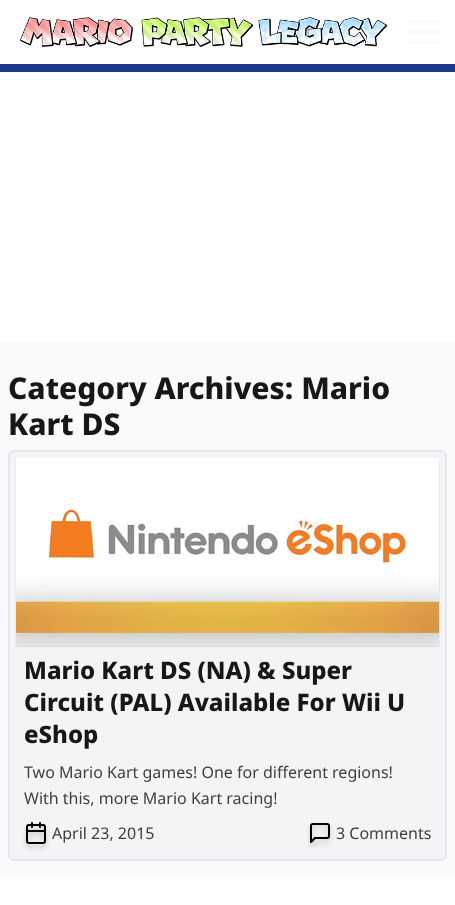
<svg xmlns="http://www.w3.org/2000/svg" width="455" height="905">
<style>
.a{font:800 30px Noto Sans;fill:#171717}
.b{font:800 24px Noto Sans;fill:#171717}
.c{font:16px Noto Sans;fill:#404040}
</style>
<rect width="100%" height="100%" fill="#fff"/>
<path fill="#1e3a8a" d="M0 64h455v8H0z"/>
<image href="1.png" x="20" y="17" width="367" height="30"/>
<path fill="none" stroke="#fafafa" stroke-width="3" stroke-linecap="round" stroke-linejoin="round" d="M406.5 21.5h33m-33 10.5h33m-33 10.5h33"/>
<path fill="#f9fafb" d="M0 342h455v535H0z"/>
<rect fill="#f3f4f6" stroke="#e5e7eb" stroke-width="2" x="9" y="451" width="437" height="409" rx="5"/>
<image href="2.png" x="15" y="458" width="425" height="189"/>
<image href="3.png" x="23" y="822" width="26" height="29"/>
<image href="4.png" x="307" y="823" width="26" height="25"/>
<text class="a" x="8" y="399">Category Archives: Mario</text>
<text class="a" x="8" y="435">Kart DS</text>
<text class="b" x="24" y="679">Mario Kart DS (NA) &amp; Super</text>
<text class="b" x="24" y="711">Circuit (PAL) Available For Wii U</text>
<text class="b" x="24" y="743">eShop</text>
<text class="c" x="24" y="778">Two Mario Kart games! One for different regions!</text>
<text class="c" x="24" y="804">With this, more Mario Kart racing!</text>
<text class="c" x="52" y="839">April 23, 2015</text>
<text class="c" x="336" y="839">3 Comments</text>
</svg>
